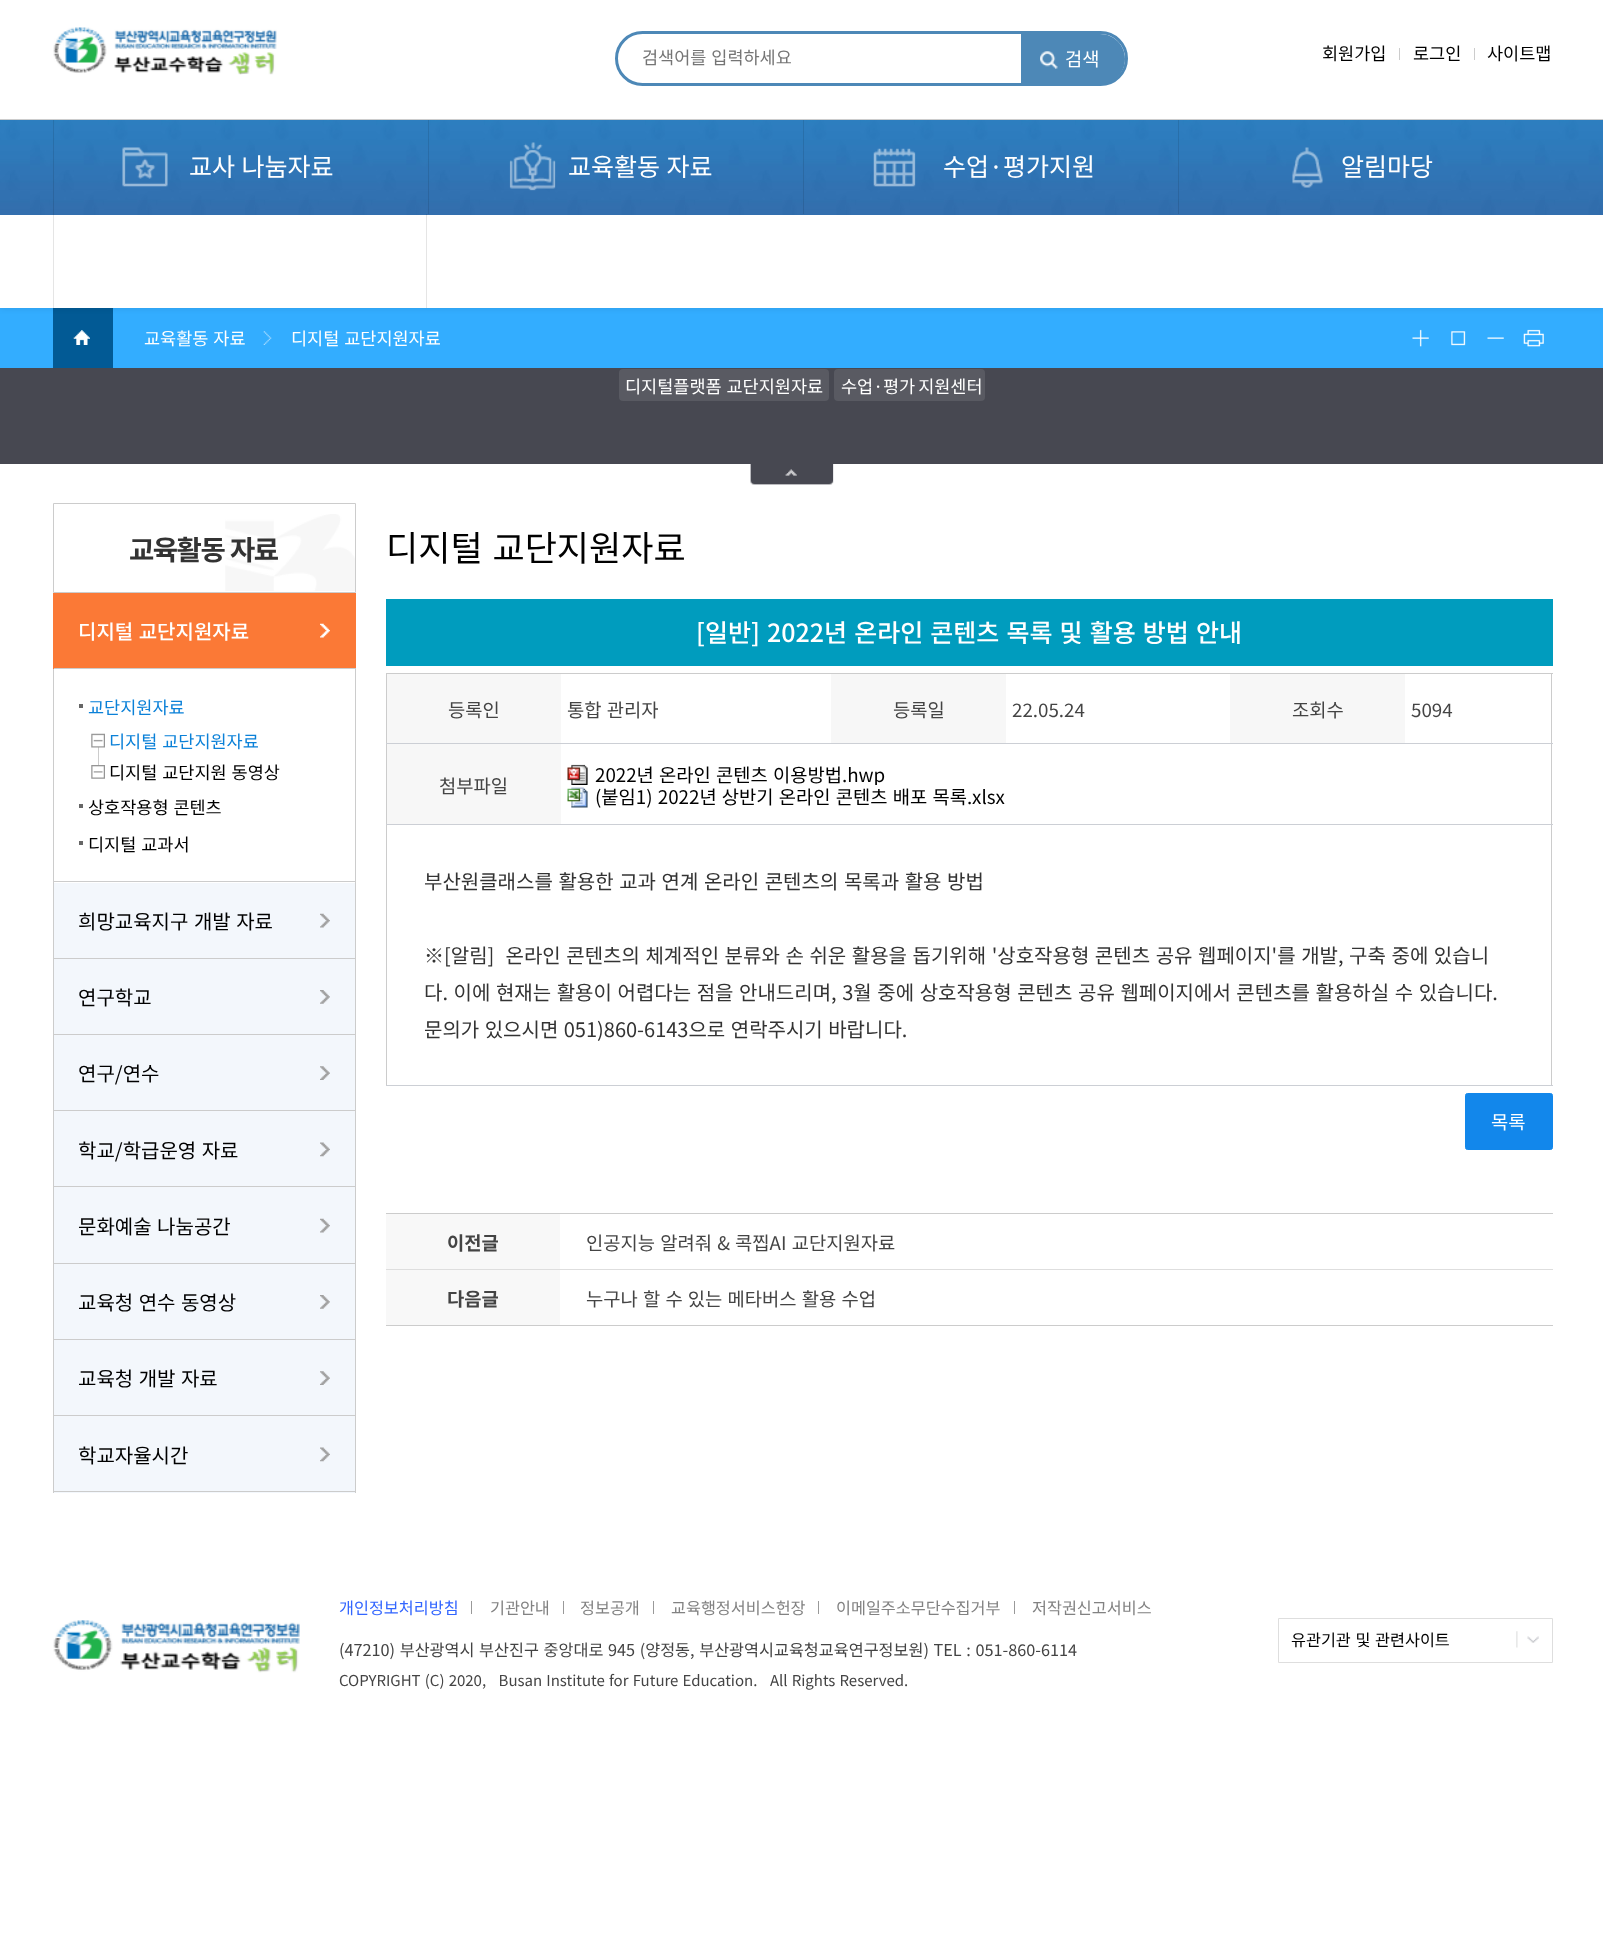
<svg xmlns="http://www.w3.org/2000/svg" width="1603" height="1946">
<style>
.a{font:17.5px Noto Sans KR;fill:#757575}
.b{font:18.75px Noto Sans KR;fill:#fff}
.c{font:17.5px Noto Sans KR;fill:#000}
.d{font:25px Noto Sans KR;fill:#fff}
.e{font:17.5px Noto Sans KR;fill:#fff}
.f{font:bold 27.5px Noto Sans KR;letter-spacing:-1.5px;fill:#333}
.g{font:500 20px Noto Sans KR;fill:#fff}
.h{font:17.5px Noto Sans KR;fill:#0b81d8}
.i{font:20px Noto Sans KR;fill:#000}
.j{font:35px Noto Sans KR;fill:#000}
.k{font:500 25px Noto Sans KR;fill:#fff}
.l{font:18.75px Noto Sans KR;fill:#444}
.m{font:18.75px Noto Sans KR;fill:#000}
.n{font:20px Noto Sans KR;fill:#333}
.o{font:bold 18.75px Noto Sans KR;fill:#444}
.p{font:16.25px Noto Sans KR;fill:#36f}
.q{font:16.25px Noto Sans KR;fill:#828282}
.r{font:16.25px Noto Sans KR;fill:#444}
.s{font:15px Noto Sans KR;fill:#444}
.t{font:16.25px Noto Sans KR;fill:#000}
</style>
<defs>
<clipPath id="clip1"><path d="M568 763h977v22H568z"/></clipPath>
</defs>
<rect width="100%" height="100%" fill="#fff"/>
<path fill="#33adff" d="M0 308h1603v60H0z"/>
<path fill="#025a95" d="M53 308h60v60H53z"/>
<path fill="#0000001a" filter="blur(3px)" d="M0 0h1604v308H0z"/>
<path fill="#fff" d="M0 0h1603v308H0z"/>
<path fill="#ccc" d="M0 119h1603v1H0z"/>
<image href="1.png" x="53" y="27" width="224" height="48"/>
<rect fill="none" stroke="#4d88b7" stroke-width="3" x="616.5" y="32.5" width="510" height="52" rx="26"/>
<path fill="#4d88b7" d="M1021 34h79c14 0 25 11 25 25c0 14-11 25-25 25h-79z"/>
<image href="2.png" x="1040" y="51" width="18" height="18"/>
<path fill="#ccc" d="M1399 48h1v12H1399z"/>
<path fill="#ccc" d="M1474 48h1v12H1474z"/>
<image href="3.png" x="0" y="120" width="1603" height="95"/>
<path fill="#0000001a" d="M53 120h1v94H53z"/>
<image href="4.png" x="122" y="147" width="46" height="40"/>
<path fill="#0000001a" d="M428 120h1v94H428z"/>
<image href="5.png" x="509" y="142" width="47" height="49"/>
<path fill="#0000001a" d="M803 120h1v94H803z"/>
<image href="6.png" x="873" y="148" width="43" height="39"/>
<path fill="#0000001a" d="M1178 120h1v94H1178z"/>
<image href="7.png" x="1292" y="147" width="31" height="41"/>
<path fill="#0000001a" d="M426 214h1v94H426z"/>
<path fill="#0000001a" d="M53 214h1v94H53z"/>
<image href="8.png" x="73" y="330" width="17" height="15"/>
<image href="9.png" x="263" y="331" width="9" height="14"/>
<image href="10.png" x="1412" y="329" width="17" height="18"/>
<image href="11.png" x="1451" y="331" width="15" height="15"/>
<image href="12.png" x="1487" y="337" width="17" height="2"/>
<image href="13.png" x="1523" y="329" width="21" height="18"/>
<path fill="#474851" d="M0 368h1603v96H0z"/>
<rect fill="#595a62" x="619" y="369" width="210" height="32" rx="4"/>
<rect fill="#595a62" x="834" y="369" width="151" height="32" rx="4"/>
<image href="14.png" x="750" y="464" width="84" height="21"/>
<image href="15.png" x="225" y="514" width="130" height="77"/>
<path fill="none" stroke="#ccc" d="M53.5 503.5h302v89H53.5z"/>
<path fill="#fb7936" d="M54 593h302v75H54z"/>
<path fill="#ccc" d="M53 668h303v1H53z"/>
<path fill="#fb7936" d="M53 593h1v76H53z"/>
<image href="16.png" x="320" y="623" width="10" height="15"/>
<path fill="#ccc" d="M355 669h1v824H355z"/>
<path fill="#ccc" d="M53 881h303v1H53z"/>
<path fill="#ccc" d="M53 669h1v214H53z"/>
<path fill="#666" d="M79 704h4v4H79z"/>
<path fill="#ccc" d="M98 743h1v22H98z"/>
<image href="17.png" x="91" y="733" width="14" height="15"/>
<image href="18.png" x="91" y="765" width="14" height="14"/>
<path fill="#666" d="M79 804h4v4H79z"/>
<path fill="#666" d="M79 841h4v4H79z"/>
<path fill="#f3f7fc" d="M54 883h301v75H54z"/>
<path fill="#ccc" d="M53 958h303v1H53z"/>
<path fill="#ccc" d="M53 883h1v76H53z"/>
<image href="19.png" x="320" y="913" width="10" height="15"/>
<path fill="#f3f7fc" d="M54 959h301v75H54z"/>
<path fill="#ccc" d="M53 1034h303v1H53z"/>
<path fill="#ccc" d="M53 959h1v76H53z"/>
<image href="20.png" x="320" y="990" width="10" height="14"/>
<path fill="#f3f7fc" d="M54 1035h301v75H54z"/>
<path fill="#ccc" d="M53 1110h303v1H53z"/>
<path fill="#ccc" d="M53 1035h1v76H53z"/>
<image href="21.png" x="320" y="1066" width="10" height="14"/>
<path fill="#f3f7fc" d="M54 1111h301v152H54z"/>
<path fill="#ccc" d="M53 1186h303v1H53z"/>
<path fill="#ccc" d="M53 1111h1v77H53z"/>
<image href="22.png" x="320" y="1142" width="10" height="15"/>
<path fill="#ccc" d="M53 1263h303v1H53z"/>
<path fill="#ccc" d="M53 1188h1v76H53z"/>
<image href="19.png" x="320" y="1218" width="10" height="15"/>
<path fill="#f3f7fc" d="M54 1264h301v75H54z"/>
<path fill="#ccc" d="M53 1339h303v1H53z"/>
<path fill="#ccc" d="M53 1264h1v76H53z"/>
<image href="20.png" x="320" y="1295" width="10" height="14"/>
<path fill="#f3f7fc" d="M54 1340h301v75H54z"/>
<path fill="#ccc" d="M53 1415h303v1H53z"/>
<path fill="#ccc" d="M53 1340h1v76H53z"/>
<image href="21.png" x="320" y="1371" width="10" height="14"/>
<path fill="#f3f7fc" d="M54 1416h301v77H54z"/>
<path fill="#ccc" d="M53 1491h303v1H53z"/>
<path fill="#ccc" d="M53 1416h1v77H53z"/>
<image href="22.png" x="320" y="1447" width="10" height="15"/>
<path fill="#009cbe" d="M386 599h1167v67H386z"/>
<path fill="#ccc" d="M386 673h1167v1H386z"/>
<path fill="#ccc" d="M1551 673h1v413H1551z"/>
<path fill="#ccc" d="M386 673h1v413H386z"/>
<path fill="#f7f7f7" d="M387 674h174v69H387z"/>
<path fill="#f7f7f7" d="M831 674h175v69H831z"/>
<path fill="#f7f7f7" d="M1230 674h175v69H1230z"/>
<path fill="#cccfd5" d="M386 743h1167v1H386z"/>
<path fill="#f7f7f7" d="M387 744h174v80H387z"/>
<path fill="#cccfd5" d="M386 824h1167v1H386z"/>
<image href="23.png" x="567" y="764" width="21" height="21"/>
<image href="24.png" x="567" y="787" width="21" height="21"/>
<path fill="#cccfd5" d="M386 1085h1167v1H386z"/>
<rect fill="#1287eb" stroke="#1287ea" x="1465.5" y="1093.5" width="87" height="56" rx="2"/>
<path fill="#ccc" d="M386 1213h1167v1H386z"/>
<path fill="#ccc" d="M386 1325h1167v1H386z"/>
<path fill="#dedede" d="M386 1269h1167v1H386z"/>
<path fill="#f8f8f8" d="M386 1214h174v55H386z"/>
<path fill="#f8f8f8" d="M386 1270h174v55H386z"/>
<image href="25.png" x="53" y="1620" width="247" height="53"/>
<path fill="#999" d="M471 1601h1v13H471z"/>
<path fill="#999" d="M563 1601h1v13H563z"/>
<path fill="#999" d="M653 1601h1v13H653z"/>
<path fill="#999" d="M818 1601h1v13H818z"/>
<path fill="#999" d="M1014 1601h1v13H1014z"/>
<image href="26.png" x="1516" y="1631" width="23" height="17"/>
<path fill="none" stroke="#dedede" d="M1278.5 1618.5h274v44H1278.5z"/>
<text class="a" x="642" y="64" word-spacing="1">검색어를 입력하세요</text>
<text class="b" x="1065" y="66">검색</text>
<text class="c" x="1322" y="60">회원가입</text>
<text class="c" x="1413" y="60">로그인</text>
<text class="c" x="1487" y="60">사이트맵</text>
<text class="d" x="189" y="176" word-spacing="1">교사 나눔자료</text>
<text class="d" x="568" y="176" word-spacing="1">교육활동 자료</text>
<text class="d" x="943" y="176">수업·평가지원</text>
<text class="d" x="1341" y="176">알림마당</text>
<text class="e" x="144" y="345" word-spacing="1">교육활동 자료</text>
<text class="e" x="291" y="345" word-spacing="1">디지털 교단지원자료</text>
<text class="e" x="625" y="393" word-spacing="1">디지털플랫폼 교단지원자료</text>
<text class="e" x="841" y="393" word-spacing="-1">수업·평가 지원센터</text>
<text class="f" x="129" y="560" word-spacing="1">교육활동 자료</text>
<text class="g" x="78" y="639" word-spacing="1">디지털 교단지원자료</text>
<text class="h" x="88" y="714">교단지원자료</text>
<text class="h" x="109" y="748" word-spacing="1">디지털 교단지원자료</text>
<text class="c" x="109" y="779" word-spacing="1">디지털 교단지원 동영상</text>
<text class="c" x="88" y="814" word-spacing="1">상호작용형 콘텐츠</text>
<text class="c" x="88" y="851" word-spacing="1">디지털 교과서</text>
<text class="i" x="78" y="929" word-spacing="1">희망교육지구 개발 자료</text>
<text class="i" x="78" y="1005">연구학교</text>
<text class="i" x="78" y="1081">연구/연수</text>
<text class="i" x="78" y="1158" word-spacing="1">학교/학급운영 자료</text>
<text class="i" x="78" y="1234" word-spacing="1">문화예술 나눔공간</text>
<text class="i" x="78" y="1310" word-spacing="1">교육청 연수 동영상</text>
<text class="i" x="78" y="1386" word-spacing="1">교육청 개발 자료</text>
<text class="i" x="78" y="1463">학교자율시간</text>
<text class="j" x="386" y="561" word-spacing="2">디지털 교단지원자료</text>
<text class="k" x="696" y="642">[일반]</text>
<text class="k" x="767" y="642" word-spacing="1.5">2022년 온라인 콘텐츠 목록 및 활용 방법 안내</text>
<text class="l" x="448" y="717">등록인</text>
<text class="l" x="567" y="717" word-spacing="1">통합 관리자</text>
<text class="l" x="893" y="717">등록일</text>
<text class="l" x="1012" y="717">22.05.24</text>
<text class="l" x="1292" y="717">조회수</text>
<text class="l" x="1411" y="717">5094</text>
<text class="l" x="439" y="793">첨부파일</text>
<g clip-path="url(#clip1)">
<text class="m" x="595" y="782" word-spacing="1">2022년 온라인 콘텐츠 이용방법.hwp</text>
</g>
<text class="m" x="595" y="804" word-spacing="1">(붙임1) 2022년 상반기 온라인 콘텐츠 배포 목록.xlsx</text>
<text class="n" x="424" y="889" word-spacing="1.1">부산원클래스를 활용한 교과 연계 온라인 콘텐츠의 목록과 활용 방법</text>
<text class="n" xml:space="preserve" x="424" y="963" word-spacing="1.1">※[알림]  온라인 콘텐츠의 체계적인 분류와 손 쉬운 활용을 돕기위해 '상호작용형 콘텐츠 공유 웹페이지'를 개발, 구축 중에 있습니</text>
<text class="n" x="424" y="1000" word-spacing="1.1">다. 이에 현재는 활용이 어렵다는 점을 안내드리며, 3월 중에 상호작용형 콘텐츠 공유 웹페이지에서 콘텐츠를 활용하실 수 있습니다.</text>
<text class="n" x="424" y="1037" word-spacing="1">문의가 있으시면 051)860-6143으로 연락주시기 바랍니다.</text>
<text class="b" x="1491" y="1129">목록</text>
<text class="o" x="447" y="1250">이전글</text>
<text class="l" x="586" y="1250" word-spacing="1">인공지능 알려줘 &amp; 콕찝AI 교단지원자료</text>
<text class="o" x="447" y="1306">다음글</text>
<text class="l" x="586" y="1306" word-spacing="1">누구나 할 수 있는 메타버스 활용 수업</text>
<text class="p" x="339" y="1614">개인정보처리방침</text>
<text class="q" x="490" y="1614">기관안내</text>
<text class="q" x="580" y="1614">정보공개</text>
<text class="q" x="671" y="1614">교육행정서비스헌장</text>
<text class="q" x="836" y="1614">이메일주소무단수집거부</text>
<text class="q" x="1032" y="1614">저작권신고서비스</text>
<text class="r" x="339" y="1656" word-spacing="1">(47210) 부산광역시 부산진구 중앙대로 945 (양정동, 부산광역시교육청교육연구정보원) TEL : 051-860-6114</text>
<text class="s" xml:space="preserve" x="339" y="1686" word-spacing="0.8">COPYRIGHT (C) 2020,   Busan Institute for Future Education.   All Rights Reserved.</text>
<text class="t" x="1291" y="1646" word-spacing="1">유관기관 및 관련사이트</text>
</svg>
